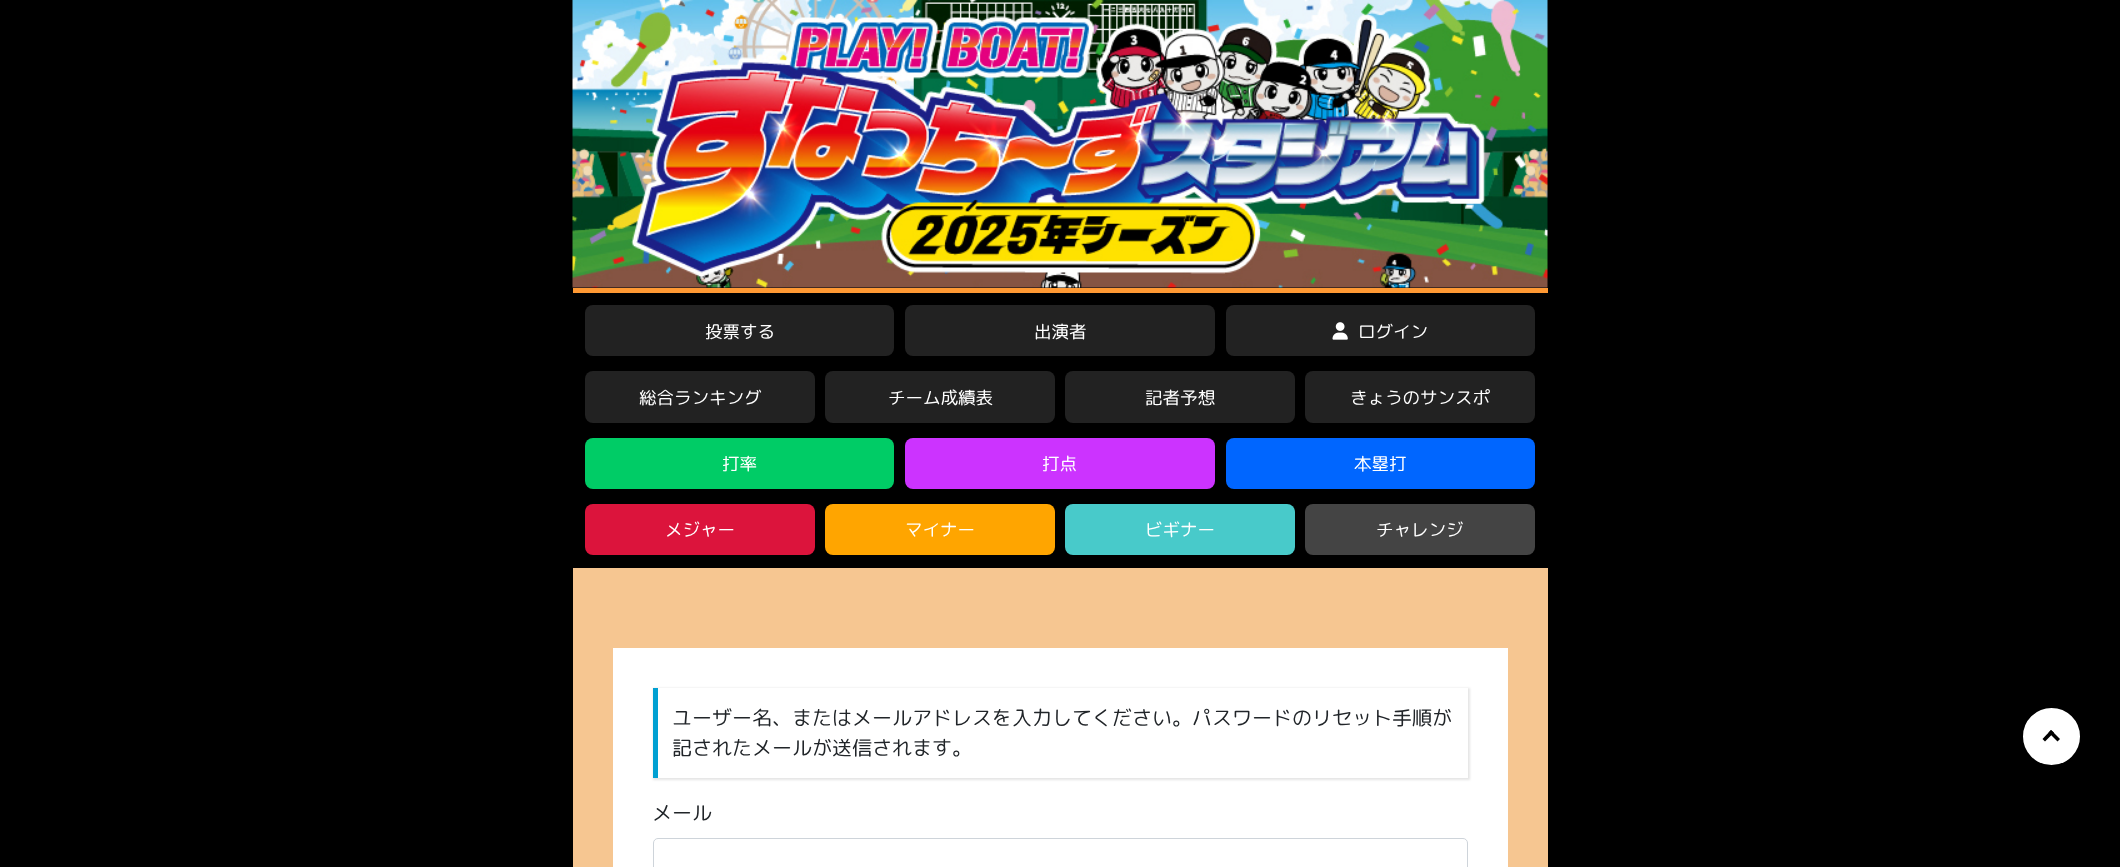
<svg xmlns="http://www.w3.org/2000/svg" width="2120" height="867">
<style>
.a{font:17.5px 'Rounded Mplus 1c';fill:#fff}
.b{font:20px 'Rounded Mplus 1c';fill:#212529}
</style>
<defs>
<clipPath id="clip1"><path d="M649 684h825v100h-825zm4 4h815v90h-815z" clip-rule="evenodd"/></clipPath>
</defs>
<rect width="100%" height="100%" fill="#000"/>
<image href="1.png" x="572" y="0" width="976" height="288"/>
<path fill="#f93" d="M573 288h975v5H573z"/>
<rect fill="#222" x="585" y="305" width="309" height="51" rx="8"/>
<rect fill="#222" x="905" y="305" width="310" height="51" rx="8"/>
<rect fill="#222" x="1226" y="305" width="309" height="51" rx="8"/>
<image href="2.png" x="1332" y="322" width="16" height="18"/>
<rect fill="#222" x="585" y="371" width="230" height="52" rx="8"/>
<rect fill="#222" x="825" y="371" width="230" height="52" rx="8"/>
<rect fill="#222" x="1065" y="371" width="230" height="52" rx="8"/>
<rect fill="#222" x="1305" y="371" width="230" height="52" rx="8"/>
<rect fill="#0c6" x="585" y="438" width="309" height="51" rx="8"/>
<rect fill="#c3f" x="905" y="438" width="310" height="51" rx="8"/>
<rect fill="#06f" x="1226" y="438" width="309" height="51" rx="8"/>
<rect fill="#dc143c" x="585" y="504" width="230" height="51" rx="8"/>
<rect fill="#ffa500" x="825" y="504" width="230" height="51" rx="8"/>
<rect fill="#48caca" x="1065" y="504" width="230" height="51" rx="8"/>
<rect fill="#444" x="1305" y="504" width="230" height="51" rx="8"/>
<path fill="#f6c691" d="M573 568h975v299H573z"/>
<path fill="#fff" d="M613 648h895v219H613z"/>
<g clip-path="url(#clip1)">
<path fill="#0000001a" filter="blur(1px)" d="M653 688h817v92H653z"/>
</g>
<path fill="#00a0d2" d="M653 688h5v90H653z"/>
<rect fill="none" stroke="#ced4da" x="653.5" y="838.5" width="814" height="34" rx="4.5"/>
<circle fill="#fff" stroke="#000" stroke-width="3" cx="2051.5" cy="736.5" r="30"/>
<path fill="#000" d="M2042.5 739l8.5-9l3 2.5l-9 9z"/>
<path fill="#000" d="M2048.5 732.5l2.5-2.5l9 9l-2.5 2.5z"/>
<text class="a" x="705" y="338">投票する</text>
<text class="a" x="1034" y="338">出演者</text>
<text class="a" x="1358" y="338">ログイン</text>
<text class="a" x="639" y="404">総合ランキング</text>
<text class="a" x="888" y="404">チーム成績表</text>
<text class="a" x="1145" y="404">記者予想</text>
<text class="a" x="1350" y="404">きょうのサンスポ</text>
<text class="a" x="722" y="470">打率</text>
<text class="a" x="1042" y="470">打点</text>
<text class="a" x="1354" y="470">本塁打</text>
<text class="a" x="665" y="536">メジャー</text>
<text class="a" x="905" y="536">マイナー</text>
<text class="a" x="1145" y="536">ビギナー</text>
<text class="a" x="1376" y="536">チャレンジ</text>
<text class="b" x="672" y="725">ユーザー名、またはメールアドレスを入力してください。パスワードのリセット手順が</text>
<text class="b" x="672" y="755">記されたメールが送信されます。</text>
<text class="b" x="652" y="820">メール</text>
</svg>
